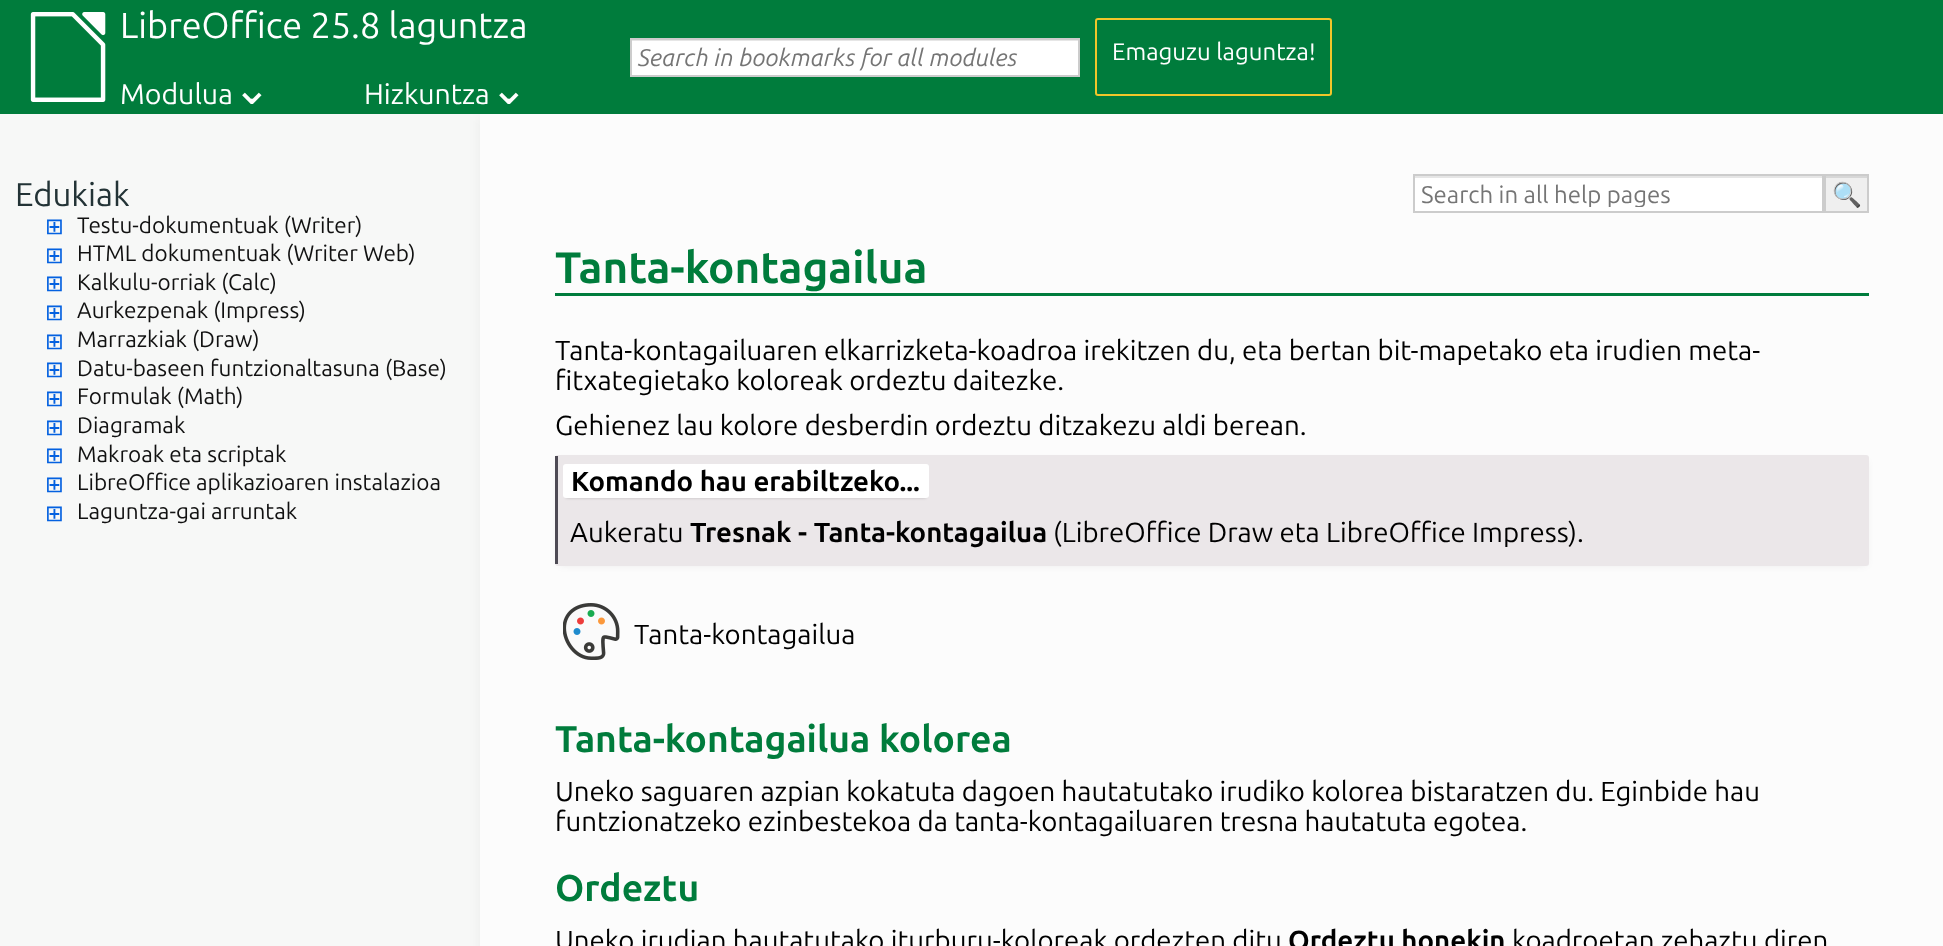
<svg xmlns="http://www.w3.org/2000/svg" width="1943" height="946">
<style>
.a{font:36px Ubuntu;fill:#fff}
.b{font:28.5px Ubuntu;fill:#fff}
.c{font:45px DejaVu Sans;fill:#fff}
.d{font:italic 24px Ubuntu;fill:#757575}
.e{font:24px Ubuntu;fill:#fff}
.f{font:33px Ubuntu;fill:#233336}
.g{font:22.5px DejaVu Sans;fill:#0461e0}
.h{font:22.5px Ubuntu;fill:#111}
.i{font:24px Ubuntu;fill:#757575}
.j{font:24px Noto Color Emoji;fill:#000}
.k{font:bold 44px Ubuntu;fill:#007c3c}
.l{font:27.6px Ubuntu;fill:#000}
.m{font:bold 27.6px Ubuntu;fill:#000}
.n{font:bold 37.25px Ubuntu;fill:#007c3c}
</style>
<defs>
<clipPath id="clip1"><path d="M1421 180h373v27H1421z"/></clipPath>
</defs>
<rect width="100%" height="100%" fill="#f7f8f7"/>
<path fill="#0000000d" filter="blur(6px)" d="M480 117h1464v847H480z"/>
<path fill="#007c3c" d="M0 0h1943v114H0z"/>
<image href="1.png" x="30" y="12" width="76" height="90"/>
<path fill="#fff" d="M632 41h446v34H632z"/>
<path fill="#e6e6e6" d="M632 40h447v1H632z"/>
<path fill="none" stroke="#ccc" stroke-width="2" d="M631 39h448v37H631z"/>
<rect fill="none" stroke="#f1c62a" stroke-width="2" x="1096" y="19" width="235" height="76" rx="2"/>
<path fill="#fcfcfc" d="M480 114h1463v832H480z"/>
<path fill="#fff" d="M1415 178h407v33H1415z"/>
<path fill="#e6e6e6" d="M1415 176h408v2H1415z"/>
<path fill="none" stroke="#ccc" stroke-width="2" d="M1414 175h409v37H1414z"/>
<path fill="#efefef" d="M1826 178h41v33H1826z"/>
<path fill="#d7d7d7" d="M1826 176h42v2H1826z"/>
<path fill="none" stroke="#ccc" stroke-width="2" d="M1825 175h43v37H1825z"/>
<path fill="#007c3c" d="M555 293h1314v3H555z"/>
<path fill="#0000001a" filter="blur(4px)" d="M560 462h1305v102H560z"/>
<rect fill="#ebe7e9" x="555" y="455" width="1314" height="111" rx="3"/>
<path fill="#4e4b55" d="M555 456h3v108H555z"/>
<path fill="#00000033" filter="blur(1.5px)" d="M566 470h360v28H566z"/>
<rect fill="#fff" x="563" y="464" width="366" height="34" rx="3"/>
<image href="2.png" x="563" y="603" width="57" height="57"/>
<text class="a" x="120" y="38">LibreOffice 25.8 laguntza</text>
<text class="b" x="120" y="104">Modulua</text>
<text class="c" x="233" y="104">⌄</text>
<text class="b" x="364" y="104">Hizkuntza</text>
<text class="c" x="490" y="104">⌄</text>
<text class="d" x="638" y="66">Search in bookmarks for all modules</text>
<text class="e" x="1112" y="60">Emaguzu laguntza!</text>
<text class="f" x="15" y="206">Edukiak</text>
<text class="g" x="45" y="234">⊞</text>
<text class="h" x="77" y="233">Testu-dokumentuak (Writer)</text>
<text class="g" x="45" y="263">⊞</text>
<text class="h" x="77" y="261">HTML dokumentuak (Writer Web)</text>
<text class="g" x="45" y="291">⊞</text>
<text class="h" x="77" y="290">Kalkulu-orriak (Calc)</text>
<text class="g" x="45" y="320">⊞</text>
<text class="h" x="77" y="318">Aurkezpenak (Impress)</text>
<text class="g" x="45" y="349">⊞</text>
<text class="h" x="77" y="347">Marrazkiak (Draw)</text>
<text class="g" x="45" y="377">⊞</text>
<text class="h" x="77" y="376">Datu-baseen funtzionaltasuna (Base)</text>
<text class="g" x="45" y="406">⊞</text>
<text class="h" x="77" y="404">Formulak (Math)</text>
<text class="g" x="45" y="435">⊞</text>
<text class="h" x="77" y="433">Diagramak</text>
<text class="g" x="45" y="463">⊞</text>
<text class="h" x="77" y="462">Makroak eta scriptak</text>
<text class="g" x="45" y="492">⊞</text>
<text class="h" x="77" y="490">LibreOffice aplikazioaren instalazioa</text>
<text class="g" x="45" y="521">⊞</text>
<text class="h" x="77" y="519">Laguntza-gai arruntak</text>
<g clip-path="url(#clip1)">
<text class="i" x="1421" y="203">Search in all help pages</text>
</g>
<text class="j" x="1832" y="203">🔍</text>
<text class="k" x="555" y="283">Tanta-kontagailua</text>
<text class="l" x="555" y="360">Tanta-kontagailuaren elkarrizketa-koadroa irekitzen du, eta bertan bit-mapetako eta irudien meta-</text>
<text class="l" x="555" y="390">fitxategietako koloreak ordeztu daitezke.</text>
<text class="l" x="555" y="435">Gehienez lau kolore desberdin ordeztu ditzakezu aldi berean.</text>
<text class="m" x="571" y="491">Komando hau erabiltzeko...</text>
<text class="l" x="570" y="542">Aukeratu</text>
<text class="m" x="690" y="542">Tresnak - Tanta-kontagailua</text>
<text class="l" x="1053" y="542">(LibreOffice Draw eta LibreOffice Impress).</text>
<text class="l" x="634" y="644">Tanta-kontagailua</text>
<text class="n" x="555" y="752">Tanta-kontagailua kolorea</text>
<text class="l" x="555" y="801">Uneko saguaren azpian kokatuta dagoen hautatutako irudiko kolorea bistaratzen du. Eginbide hau</text>
<text class="l" x="555" y="831">funtzionatzeko ezinbestekoa da tanta-kontagailuaren tresna hautatuta egotea.</text>
<text class="n" x="555" y="901">Ordeztu</text>
<text class="l" x="555" y="950">Uneko irudian hautatutako iturburu-koloreak ordezten ditu</text>
<text class="m" x="1288" y="950">Ordeztu honekin</text>
<text class="l" x="1512" y="950">koadroetan zehaztu diren</text>
</svg>
